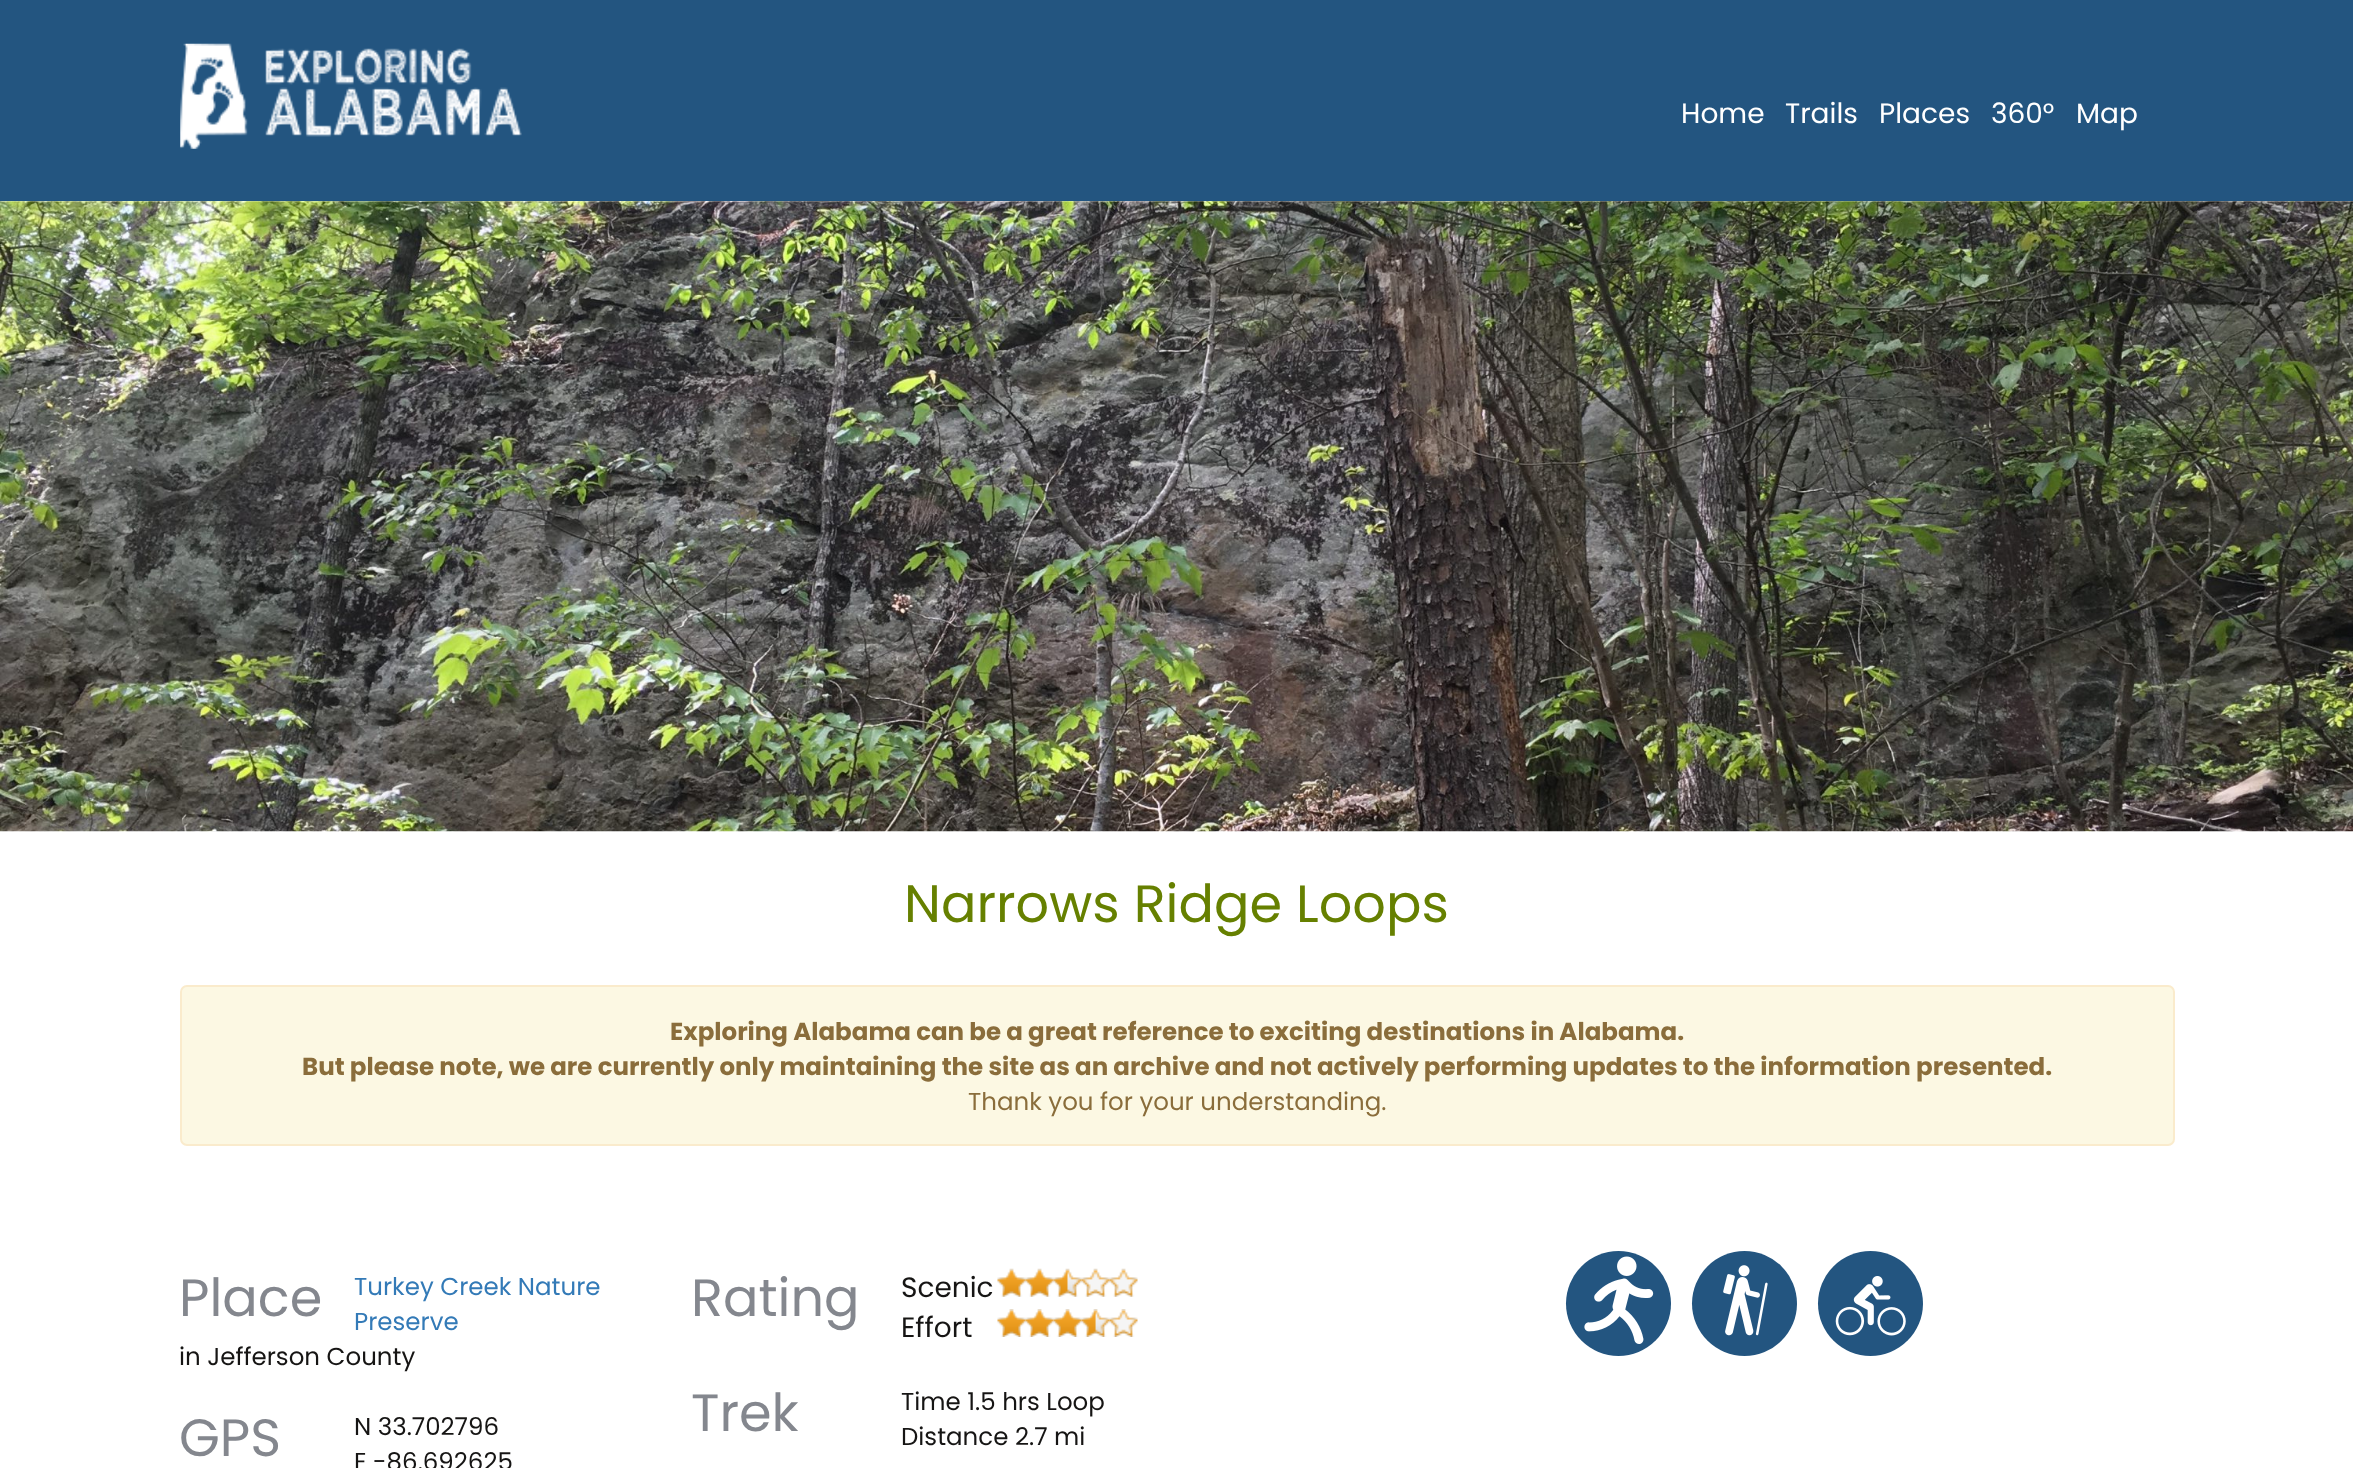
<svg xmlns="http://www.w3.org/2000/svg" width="2353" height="1468">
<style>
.a{font:28px Poppins;fill:#fff}
.b{font:52.5px Poppins;fill:#668000}
.c{font:bold 24.5px Poppins;fill:#8a6d3b}
.d{font:24.5px Poppins;fill:#8a6d3b}
.e{font:24.5px Poppins;fill:#337ab7}
.f{font:24.5px Poppins;fill:#161514}
.g{font:52.5px Poppins;fill:#84878e}
.h{font:28px Poppins;fill:#161514}
</style>
<rect width="100%" height="100%" fill="#fff"/>
<path fill="#235580" d="M0 0h2353v201H0z"/>
<image href="1.png" x="180" y="43" width="342" height="106"/>
<image href="2.png" x="0" y="201" width="2353" height="631"/>
<rect fill="#fcf8e3" stroke="#faebcc" stroke-width="2" x="181" y="986" width="1993" height="159" rx="6"/>
<image href="3.png" x="997" y="1268" width="29" height="29"/>
<image href="4.png" x="1025" y="1268" width="29" height="29"/>
<image href="5.png" x="1053" y="1268" width="29" height="29"/>
<image href="6.png" x="1081" y="1268" width="29" height="29"/>
<image href="7.png" x="1109" y="1268" width="29" height="29"/>
<image href="8.png" x="997" y="1309" width="29" height="28"/>
<image href="9.png" x="1025" y="1309" width="29" height="28"/>
<image href="9.png" x="1053" y="1309" width="29" height="28"/>
<image href="10.png" x="1081" y="1309" width="29" height="28"/>
<image href="11.png" x="1109" y="1309" width="29" height="28"/>
<circle fill="#235580" cx="1618.5" cy="1303.5" r="52.5"/>
<image href="12.png" x="1584" y="1256" width="70" height="88"/>
<circle fill="#235580" cx="1744.5" cy="1303.5" r="52.5"/>
<image href="13.png" x="1723" y="1265" width="45" height="71"/>
<circle fill="#235580" cx="1870.5" cy="1303.5" r="52.5"/>
<image href="14.png" x="1835" y="1276" width="71" height="60"/>
<text class="a" x="1681" y="123">Home</text>
<text class="a" x="1785" y="123">Trails</text>
<text class="a" x="1879" y="123">Places</text>
<text class="a" x="1991" y="123">360°</text>
<text class="a" x="2076" y="123">Map</text>
<text class="b" x="904" y="922">Narrows Ridge Loops</text>
<text class="c" x="670" y="1040">Exploring Alabama can be a great reference to exciting destinations in Alabama.</text>
<text class="c" x="302" y="1075">But please note, we are currently only maintaining the site as an archive and not actively performing updates to the information presented.</text>
<text class="d" x="968" y="1110">Thank you for your understanding.</text>
<text class="e" x="354" y="1295">Turkey Creek Nature</text>
<text class="e" x="354" y="1330">Preserve</text>
<text class="f" x="179" y="1365">in Jefferson County</text>
<text class="g" x="179" y="1316">Place</text>
<text class="g" x="179" y="1456">GPS</text>
<text class="f" x="354" y="1435">N 33.702796</text>
<text class="f" x="354" y="1470">E -86.692625</text>
<text class="g" x="691" y="1316">Rating</text>
<text class="h" x="901" y="1297">Scenic</text>
<text class="h" x="901" y="1337">Effort</text>
<text class="g" x="691" y="1431">Trek</text>
<text class="f" x="901" y="1410">Time 1.5 hrs Loop</text>
<text class="f" x="901" y="1445">Distance 2.7 mi</text>
</svg>
